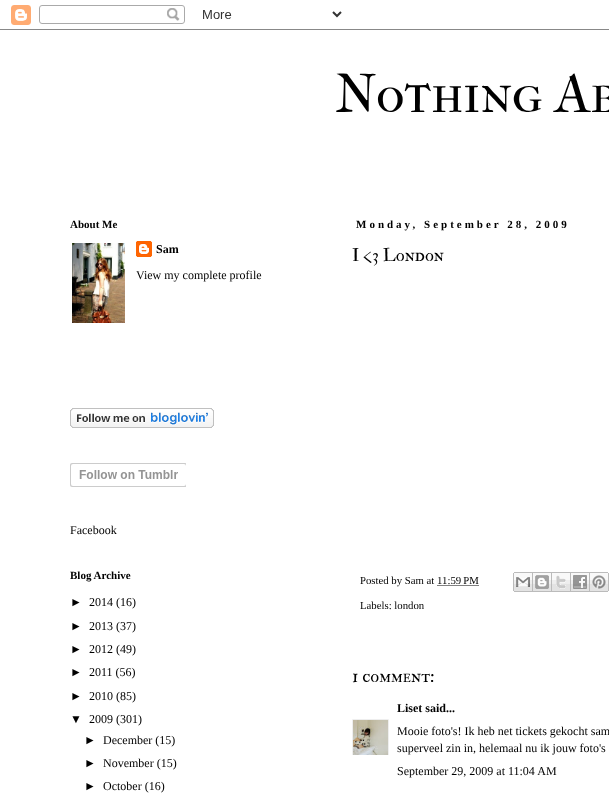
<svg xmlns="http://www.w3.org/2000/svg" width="609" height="795">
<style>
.a{font:55px IM FELL French Canon SC;fill:#000}
.b{font:bold 11px Liberation Serif;fill:#000}
.c{font:bold 12px Liberation Serif;fill:#000}
.d{font:12px Liberation Serif;fill:#000}
.e{font:12px Liberation Sans;fill:#000}
.f{font:bold 11px Liberation Serif;letter-spacing:3px;fill:#000}
.g{font:18px IM FELL Double Pica SC;fill:#000}
.h{font:10.75px Liberation Serif;fill:#000}
</style>
<defs>
<clipPath id="clip1"><path d="M352 719h37v36H352z"/></clipPath>
</defs>
<rect width="100%" height="100%" fill="#fff"/>
<image href="1.png" x="0" y="5" width="609" height="25"/>
<image href="2.png" x="72" y="243" width="53" height="80"/>
<image href="3.png" x="136" y="241" width="16" height="16"/>
<image href="4.png" x="70" y="408" width="144" height="20"/>
<image href="5.png" x="70" y="463" width="116" height="24"/>
<image href="6.png" x="513" y="572" width="20" height="20"/>
<image href="7.png" x="533" y="572" width="19" height="20"/>
<image href="8.png" x="552" y="572" width="19" height="20"/>
<image href="9.png" x="571" y="572" width="19" height="20"/>
<image href="10.png" x="590" y="572" width="19" height="20"/>
<path fill="none" stroke="#000" stroke-dasharray="1 1" d="M437.5 585.5h42"/>
<g clip-path="url(#clip1)">
<path fill="none" stroke="#eee" d="M352.5 719.5h36v36H352.5z"/>
</g>
<image href="11.png" x="353" y="720" width="35" height="35"/>
<text class="a" x="335" y="112">Nothing Ab</text>
<text class="b" x="70" y="228">About Me</text>
<text class="c" x="156" y="253">Sam</text>
<text class="d" x="136" y="279">View my complete profile</text>
<text class="d" x="70" y="534">Facebook</text>
<text class="b" x="70" y="579">Blog Archive</text>
<text class="e" x="70" y="606">►</text>
<text class="d" x="89" y="606">2014 (16)</text>
<text class="e" x="70" y="630">►</text>
<text class="d" x="89" y="630">2013 (37)</text>
<text class="e" x="70" y="653">►</text>
<text class="d" x="89" y="653">2012 (49)</text>
<text class="e" x="70" y="676">►</text>
<text class="d" x="89" y="676">2011 (56)</text>
<text class="e" x="70" y="700">►</text>
<text class="d" x="89" y="700">2010 (85)</text>
<text class="e" x="70" y="723">▼</text>
<text class="d" x="89" y="723">2009 (301)</text>
<text class="e" x="84" y="744">►</text>
<text class="d" x="103" y="744">December (15)</text>
<text class="e" x="84" y="767">►</text>
<text class="d" x="103" y="767">November (15)</text>
<text class="e" x="84" y="790">►</text>
<text class="d" x="103" y="790">October (16)</text>
<text class="f" x="356" y="228">Monday, September 28, 2009</text>
<text class="g" x="352" y="261">I &lt;3 London</text>
<text class="h" x="360" y="584">Posted by Sam at 11:59 PM</text>
<text class="h" x="360" y="609">Labels: london</text>
<text class="g" x="352" y="682">1 comment:</text>
<text class="c" x="397" y="712">Liset said...</text>
<text class="d" x="397" y="735">Mooie foto's! Ik heb net tickets gekocht sam</text>
<text class="d" x="397" y="752">superveel zin in, helemaal nu ik jouw foto's</text>
<text class="d" x="397" y="775">September 29, 2009 at 11:04 AM</text>
</svg>
